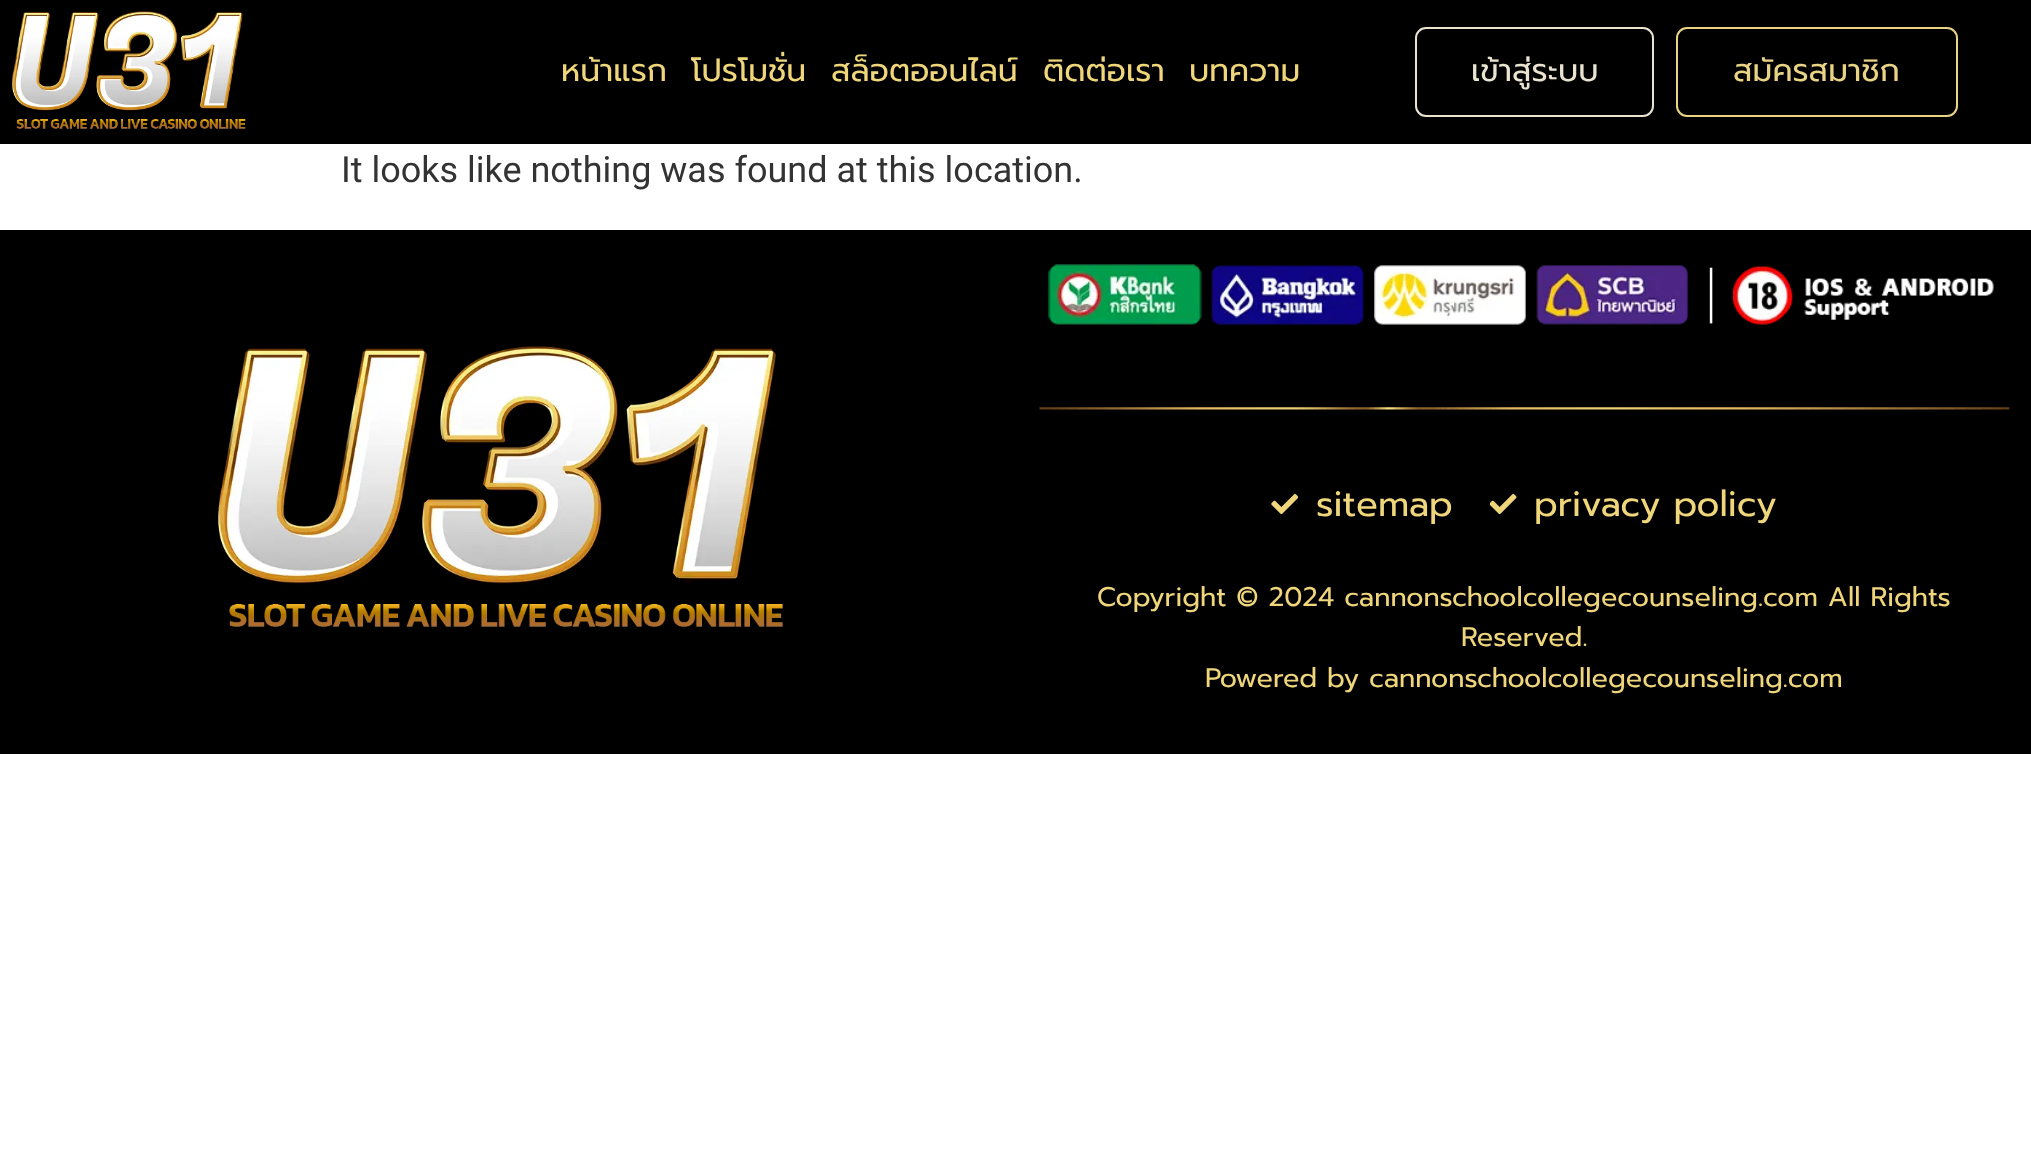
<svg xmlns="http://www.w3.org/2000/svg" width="2031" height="1161">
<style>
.a{font:31.5px Prompt;fill:#f0d67b}
.b{font:31.5px Prompt;fill:#e9e3cf}
.c{font:31.5px Prompt;fill:#e9d384}
.d{font:36px Roboto;fill:#333}
.e{font:36px Prompt;fill:#f0d67b}
.f{font:27px Prompt;fill:#f0d67b}
</style>
<rect width="100%" height="100%" fill="#fff"/>
<path fill="#000" d="M0 0h2031v144H0z"/>
<image href="1.png" x="12" y="11" width="234" height="118"/>
<rect fill="none" stroke="#e9e3cf" stroke-width="2" x="1416" y="28" width="237" height="88" rx="10"/>
<rect fill="none" stroke="#e9d384" stroke-width="2" x="1677" y="28" width="280" height="88" rx="10"/>
<path fill="#000" d="M0 230h2031v524H0z"/>
<image href="2.png" x="218" y="346" width="565" height="281"/>
<image href="3.png" x="1047" y="264" width="947" height="61"/>
<image href="4.png" x="1039" y="407" width="971" height="3"/>
<image href="5.png" x="1271" y="494" width="27" height="21"/>
<image href="6.png" x="1490" y="493" width="27" height="22"/>
<text class="a" x="561" y="81">หน้าแรก</text>
<text class="a" x="691" y="81">โปรโมชั่น</text>
<text class="a" x="831" y="81">สล็อตออนไลน์</text>
<text class="a" x="1043" y="81">ติดต่อเรา</text>
<text class="a" x="1189" y="81">บทความ</text>
<text class="b" x="1471" y="81">เข้าสู่ระบบ</text>
<text class="c" x="1733" y="81">สมัครสมาชิก</text>
<text class="d" x="341" y="182">It looks like nothing was found at this location.</text>
<text class="e" x="1316" y="516">sitemap</text>
<text class="e" x="1534" y="516">privacy policy</text>
<text class="f" x="1097" y="606">Copyright © 2024 cannonschoolcollegecounseling.com All Rights</text>
<text class="f" x="1461" y="646">Reserved.</text>
<text class="f" x="1205" y="687">Powered by cannonschoolcollegecounseling.com</text>
</svg>
